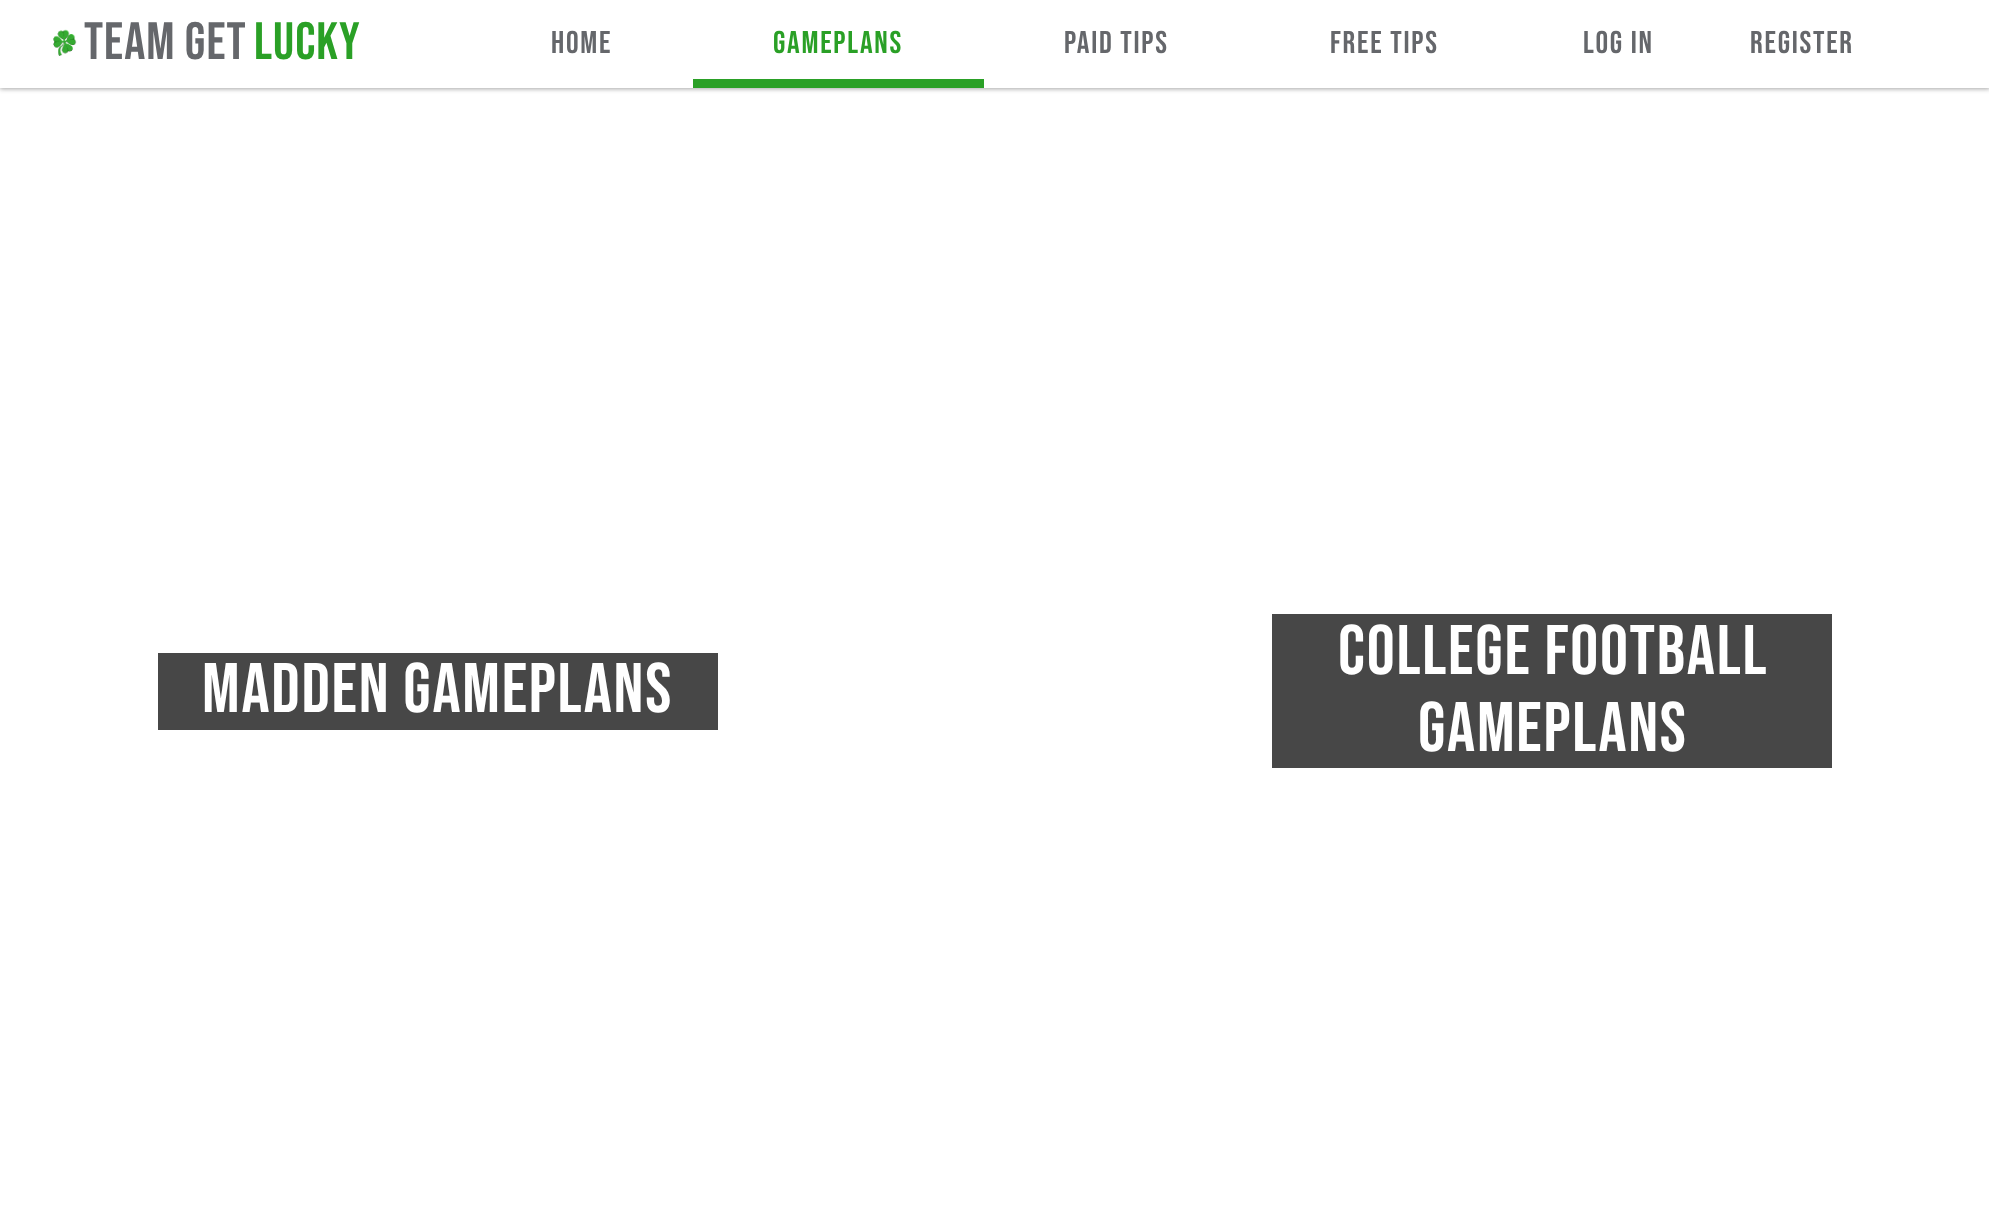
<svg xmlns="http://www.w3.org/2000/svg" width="1989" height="1207">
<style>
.a{font:52.5px Bebas Neue;letter-spacing:1px;fill:#65676b}
.b{font:52.5px Bebas Neue;letter-spacing:1px;fill:#2aa026}
.c{font:31.5px Bebas Neue;letter-spacing:1.75px;fill:#65676b}
.d{font:31.5px Bebas Neue;letter-spacing:1.75px;fill:#2aa026}
.e{font:70px Bebas Neue;letter-spacing:1.75px;fill:#fff}
</style>
<rect width="100%" height="100%" fill="#fff"/>
<path fill="#0000003d" filter="blur(2px)" d="M0 2h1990v87H0z"/>
<path fill="#0000001f" filter="blur(2.5px)" d="M0 2h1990v87H0z"/>
<path fill="#fff" d="M0 0h1989v88H0z"/>
<image href="1.png" x="53" y="29" width="24" height="27"/>
<path fill="#2aa026" d="M693 79h291v9H693z"/>
<path fill="#474747" d="M158 653h560v77H158z"/>
<path fill="#474747" d="M1272 614h560v154H1272z"/>
<text class="a" x="84" y="59">Team Get</text>
<text class="b" x="254" y="59">Lucky</text>
<text class="c" x="551" y="53">HOME</text>
<text class="d" x="773" y="53">GAMEPLANS</text>
<text class="c" x="1064" y="53">PAID TIPS</text>
<text class="c" x="1330" y="53">FREE TIPS</text>
<text class="c" x="1583" y="53">LOG IN</text>
<text class="c" x="1750" y="53">REGISTER</text>
<text class="e" x="202" y="712">Madden Gameplans</text>
<text class="e" x="1338" y="674">College Football</text>
<text class="e" x="1418" y="751">Gameplans</text>
</svg>
